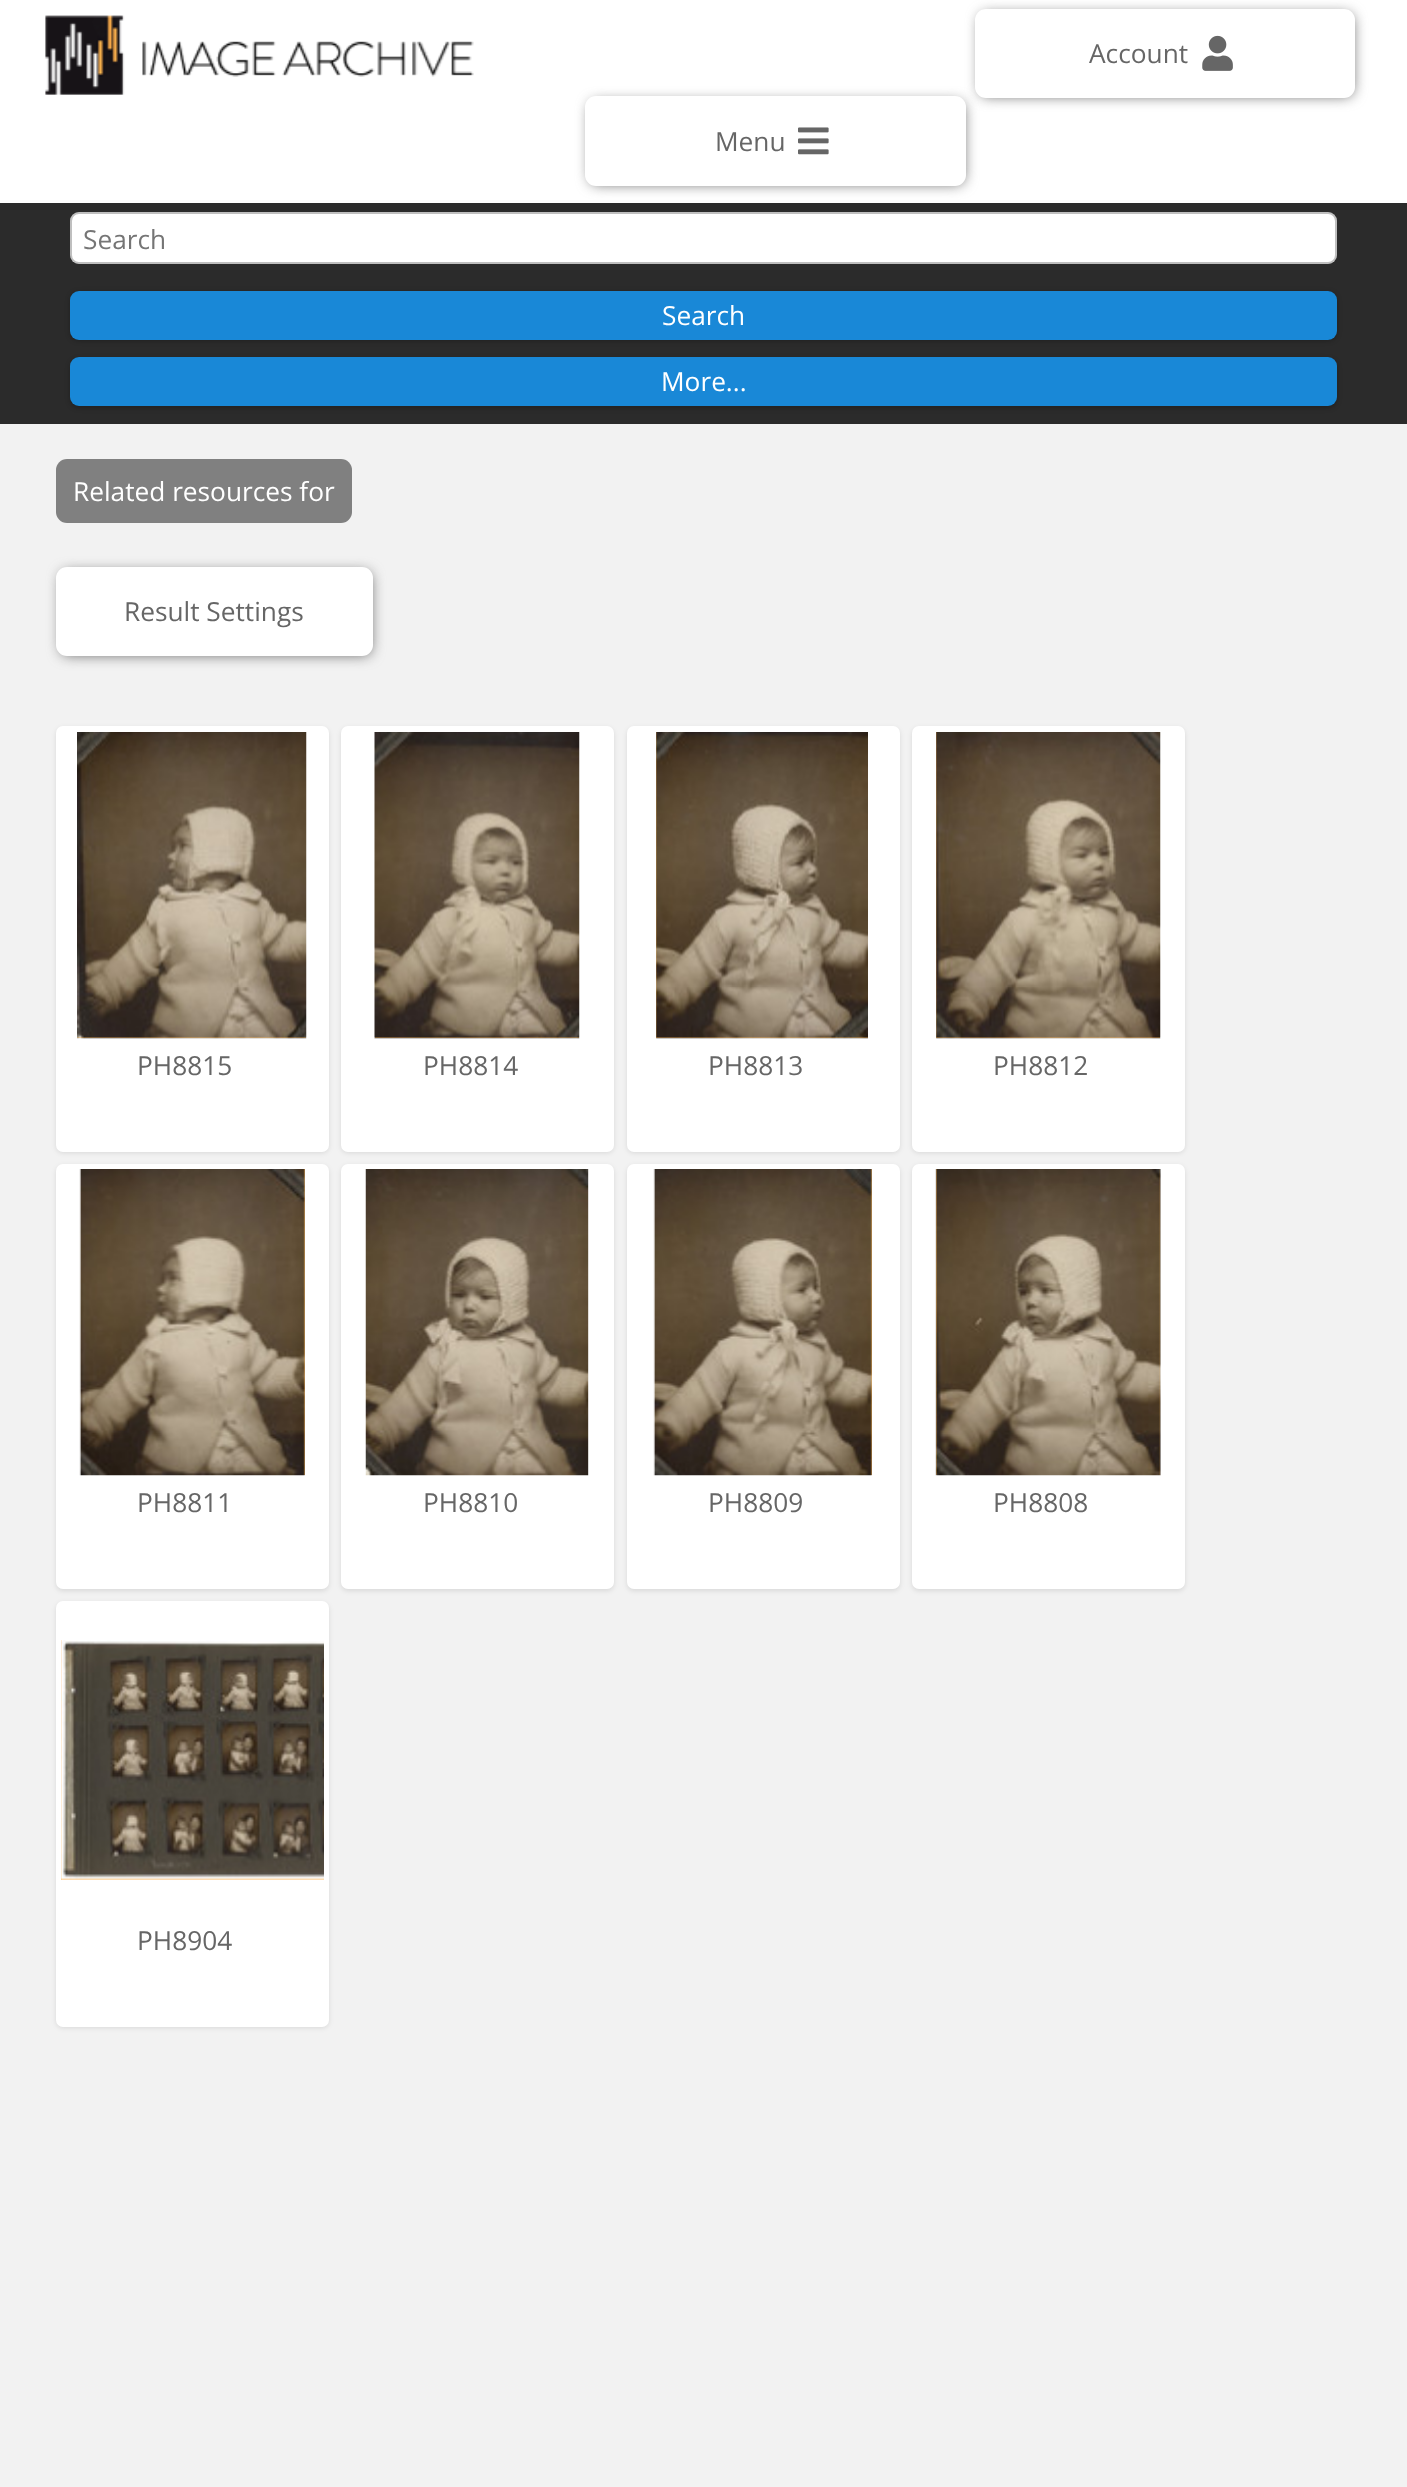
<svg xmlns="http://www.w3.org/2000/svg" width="1407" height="2487">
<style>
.a{font:26.25px Open Sans;fill:#666}
.b{font:26.25px Open Sans;fill:#757575}
.c{font:26.25px Open Sans;fill:#fff}
</style>
<rect width="100%" height="100%" fill="#f2f2f2"/>
<path fill="#fff" d="M0 0h1407v203H0z"/>
<image href="1.png" x="45" y="15" width="429" height="80"/>
<rect fill="#666" filter="blur(7px)" x="980" y="14" width="373" height="82" rx="7"/>
<rect fill="#fff" x="975" y="9" width="380" height="89" rx="11"/>
<image href="2.png" x="1202" y="35" width="31" height="36"/>
<rect fill="#666" filter="blur(7px)" x="590" y="102" width="374" height="82" rx="7"/>
<rect fill="#fff" x="585" y="96" width="381" height="90" rx="11"/>
<image href="3.png" x="798" y="127" width="31" height="28"/>
<path fill="#2b2b2b" d="M0 203h1407v221H0z"/>
<rect fill="#fff" x="70" y="212" width="1267" height="52" rx="9"/>
<rect fill="none" stroke="#00000040" stroke-width="2" x="71" y="213" width="1265" height="50" rx="8"/>
<rect fill="#00000040" filter="blur(2.5px)" x="70" y="292" width="1267" height="49" rx="9"/>
<rect fill="#1988d7" x="70" y="291" width="1267" height="49" rx="9"/>
<rect fill="#00000040" filter="blur(2.5px)" x="70" y="359" width="1267" height="49" rx="9"/>
<rect fill="#1988d7" x="70" y="357" width="1267" height="49" rx="9"/>
<rect fill="#808080" x="56" y="459" width="296" height="64" rx="11"/>
<rect fill="#666" filter="blur(7px)" x="61" y="572" width="310" height="83" rx="7"/>
<rect fill="#fff" x="56" y="567" width="317" height="89" rx="11"/>
<rect fill="#0000001a" filter="blur(2.5px)" x="56" y="728" width="273" height="425" rx="7"/>
<rect fill="#fff" x="56" y="726" width="273" height="426" rx="7"/>
<path fill="#ffbc64" d="M77 1037h229v1H77z"/>
<image href="4.png" x="77" y="732" width="230" height="307"/>
<rect fill="#0000001a" filter="blur(2.5px)" x="341" y="728" width="273" height="425" rx="7"/>
<rect fill="#fff" x="341" y="726" width="273" height="426" rx="7"/>
<path fill="#ffbc64" d="M375 1037h204v1H375z"/>
<image href="5.png" x="374" y="732" width="206" height="307"/>
<rect fill="#0000001a" filter="blur(2.5px)" x="627" y="728" width="273" height="425" rx="7"/>
<rect fill="#fff" x="627" y="726" width="273" height="426" rx="7"/>
<path fill="#ffbc64" d="M656 732h212v306H656z"/>
<image href="6.png" x="656" y="732" width="212" height="307"/>
<rect fill="#0000001a" filter="blur(2.5px)" x="912" y="728" width="273" height="425" rx="7"/>
<rect fill="#fff" x="912" y="726" width="273" height="426" rx="7"/>
<path fill="#ffbb64" d="M936 732h224v306H936z"/>
<image href="7.png" x="936" y="732" width="225" height="307"/>
<rect fill="#0000001a" filter="blur(2.5px)" x="56" y="1166" width="273" height="425" rx="7"/>
<rect fill="#fff" x="56" y="1164" width="273" height="425" rx="7"/>
<path fill="#ffbd64" d="M303 1169h2v306H303z"/>
<image href="8.png" x="79" y="1169" width="226" height="307"/>
<rect fill="#0000001a" filter="blur(2.5px)" x="341" y="1166" width="273" height="425" rx="7"/>
<rect fill="#fff" x="341" y="1164" width="273" height="425" rx="7"/>
<image href="9.png" x="365" y="1169" width="224" height="307"/>
<rect fill="#0000001a" filter="blur(2.5px)" x="627" y="1166" width="273" height="425" rx="7"/>
<rect fill="#fff" x="627" y="1164" width="273" height="425" rx="7"/>
<path fill="#ffbd64" d="M870 1169h2v306H870z"/>
<image href="10.png" x="653" y="1169" width="219" height="307"/>
<rect fill="#0000001a" filter="blur(2.5px)" x="912" y="1166" width="273" height="425" rx="7"/>
<rect fill="#fff" x="912" y="1164" width="273" height="425" rx="7"/>
<path fill="#ffbe64" d="M936 1169h224v306H936z"/>
<image href="11.png" x="935" y="1169" width="226" height="307"/>
<rect fill="#0000001a" filter="blur(2.5px)" x="56" y="1603" width="273" height="425" rx="7"/>
<rect fill="#fff" x="56" y="1601" width="273" height="426" rx="7"/>
<path fill="#ffba64" d="M61 1640h263v240H61z"/>
<image href="12.png" x="61" y="1640" width="263" height="240"/>
<text class="a" x="1089" y="63">Account</text>
<text class="a" x="715" y="151">Menu</text>
<text class="b" x="83" y="249">Search</text>
<text class="c" x="662" y="325">Search</text>
<text class="c" x="661" y="391">More...</text>
<text class="c" x="73" y="501">Related resources for</text>
<text class="a" x="124" y="621">Result Settings</text>
<text class="a" x="137" y="1075">PH8815</text>
<text class="a" x="423" y="1075">PH8814</text>
<text class="a" x="708" y="1075">PH8813</text>
<text class="a" x="993" y="1075">PH8812</text>
<text class="a" x="137" y="1512">PH8811</text>
<text class="a" x="423" y="1512">PH8810</text>
<text class="a" x="708" y="1512">PH8809</text>
<text class="a" x="993" y="1512">PH8808</text>
<text class="a" x="137" y="1950">PH8904</text>
</svg>
